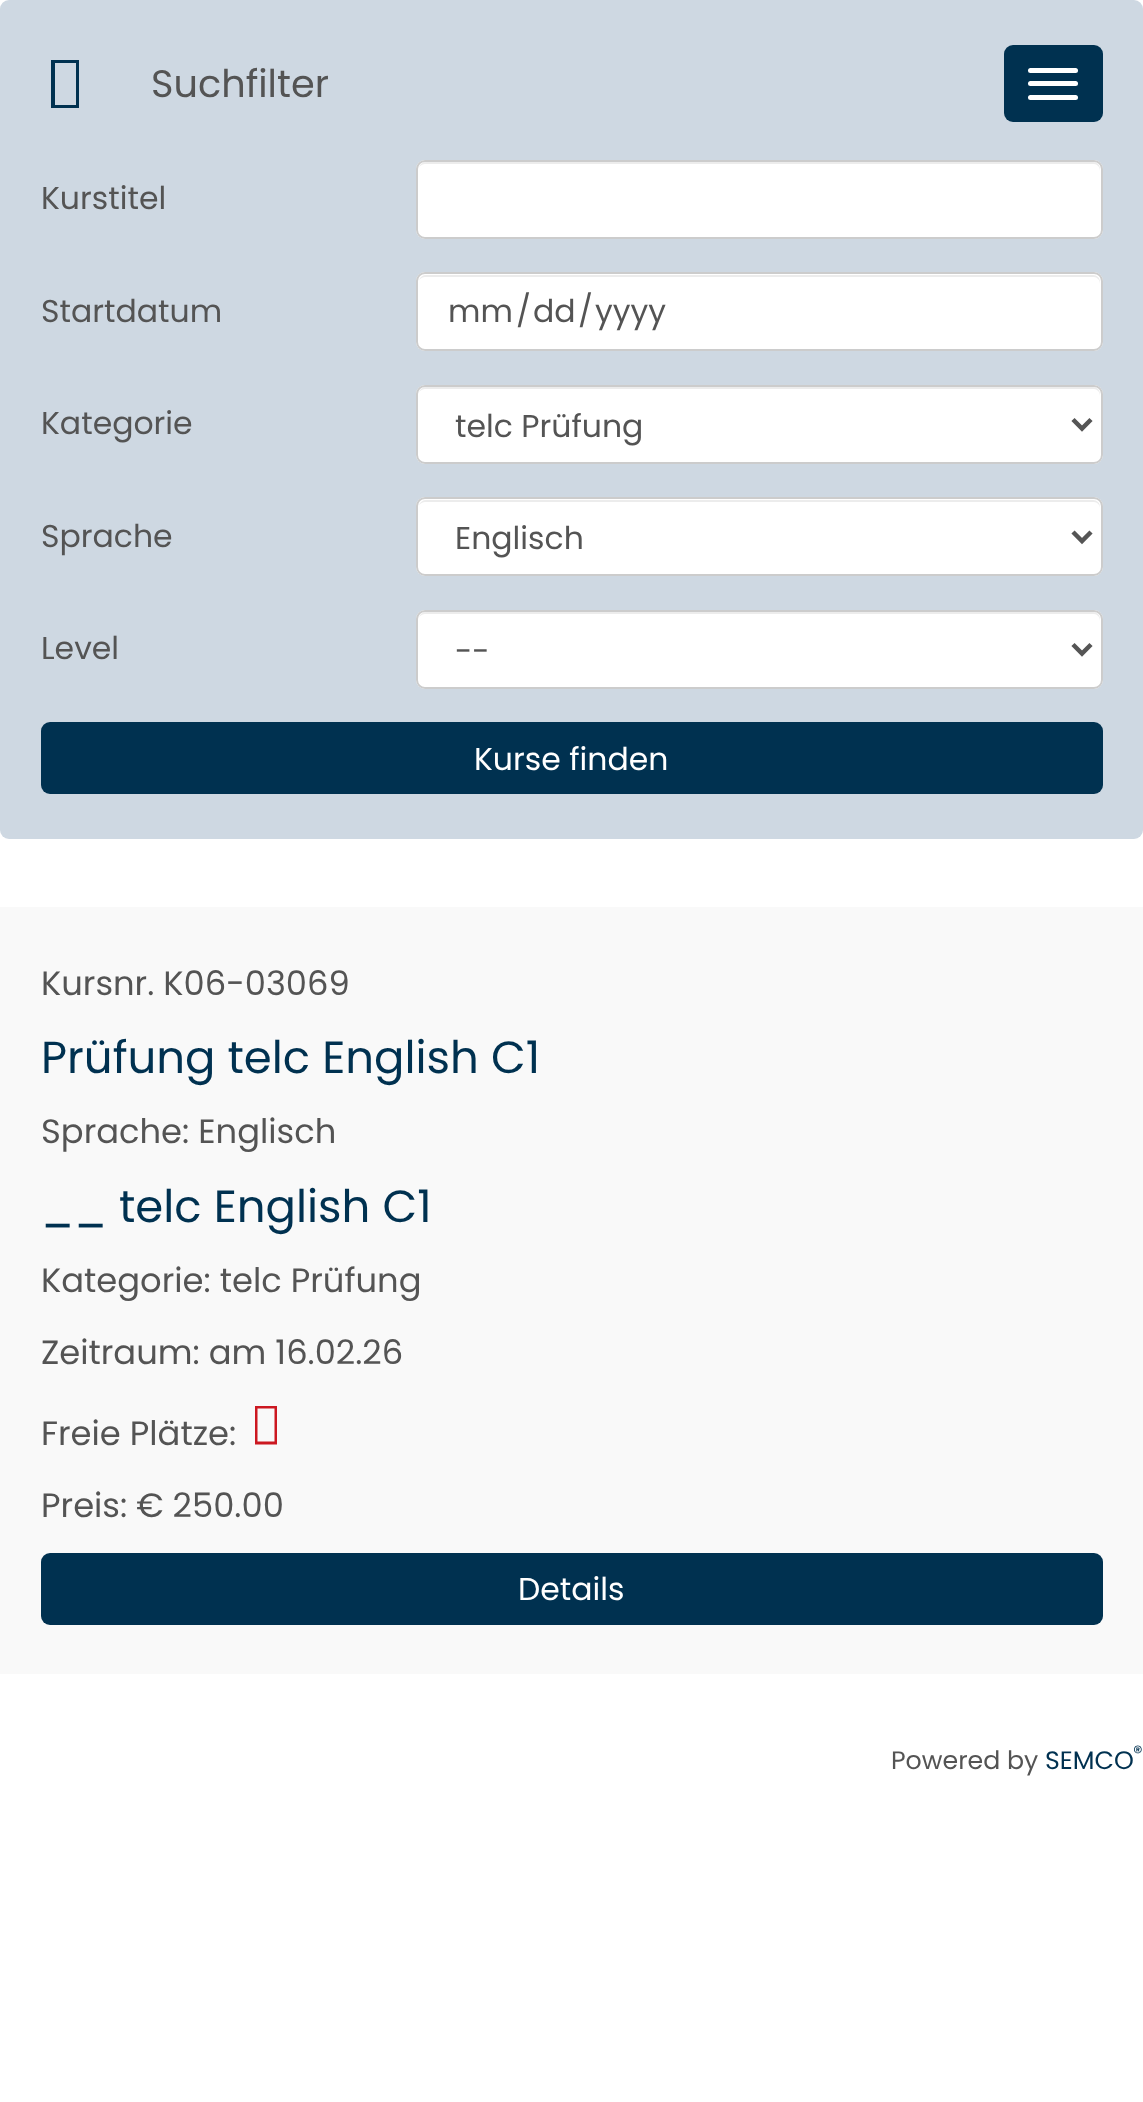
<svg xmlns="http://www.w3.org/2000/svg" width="1143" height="2102">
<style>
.a{font:38.25px Poppins;fill:#545454}
.b{font:31.5px Poppins;fill:#545454}
.c{font:31.5px Poppins;fill:#fff}
.d{font:33.75px Poppins;fill:#545454}
.e{font:45px Poppins;fill:#003150}
.f{font:25.25px Poppins;fill:#545454}
.g{font:25.25px Poppins;fill:#003150}
.h{font:19px Poppins;fill:#003150}
</style>
<rect width="100%" height="100%" fill="#fff"/>
<rect fill="#ced8e2" width="1143" height="839" rx="9"/>
<path fill="#003150" d="M51 108v-48h28v48zm4-3h21v-42h-21z"/>
<rect fill="#003150" x="1004" y="45" width="99" height="77" rx="9"/>
<rect fill="#fff" x="1028" y="68" width="50" height="5" rx="2.5"/>
<rect fill="#fff" x="1028" y="81" width="50" height="5" rx="2.5"/>
<rect fill="#fff" x="1028" y="95" width="50" height="5" rx="2.5"/>
<rect fill="#fff" x="416" y="160" width="687" height="79" rx="9"/>
<path fill="#ececec" d="M425 164h669c3 0 6 3 6 7v-2c0-4-3-7-7-7h-667c-3 0-6 2-7 5c2-2 4-3 6-3z"/>
<rect fill="none" stroke="#ccc" stroke-width="2" x="417" y="161" width="685" height="77" rx="8"/>
<rect fill="#fff" x="416" y="272" width="687" height="79" rx="9"/>
<path fill="#ececec" d="M425 277h669c3 0 6 3 6 7v-2c0-4-3-7-7-7h-667c-3 0-6 2-7 5c2-2 4-3 6-3z"/>
<rect fill="none" stroke="#ccc" stroke-width="2" x="417" y="273" width="685" height="77" rx="8"/>
<rect fill="#fff" x="416" y="385" width="687" height="79" rx="9"/>
<path fill="#ececec" d="M425 389h669c3 0 6 3 6 7v-2c0-4-3-7-7-7h-667c-3 0-6 2-7 5c2-2 4-3 6-3z"/>
<rect fill="none" stroke="#ccc" stroke-width="2" x="417" y="386" width="685" height="77" rx="8"/>
<path fill="none" stroke="#555" stroke-width="4.5" d="M1073 419.5l9 9l9-9"/>
<rect fill="#fff" x="416" y="497" width="687" height="79" rx="9"/>
<path fill="#ececec" d="M425 502h669c3 0 6 3 6 6v-1c0-4-3-7-7-7h-667c-3 0-6 2-7 5c2-2 4-3 6-3z"/>
<rect fill="none" stroke="#ccc" stroke-width="2" x="417" y="498" width="685" height="77" rx="8"/>
<path fill="none" stroke="#555" stroke-width="4.5" d="M1073 532l9 9l9-9"/>
<rect fill="#fff" x="416" y="610" width="687" height="79" rx="9"/>
<path fill="#ececec" d="M425 614h669c3 0 6 3 6 7v-2c0-4-3-7-7-7h-667c-3 0-6 2-7 5c2-2 4-3 6-3z"/>
<rect fill="none" stroke="#ccc" stroke-width="2" x="417" y="611" width="685" height="77" rx="8"/>
<path fill="none" stroke="#555" stroke-width="4.5" d="M1073 644.5l9 9l9-9"/>
<rect fill="#003150" x="41" y="722" width="1062" height="72" rx="9"/>
<path fill="#f9f9f9" d="M0 907h1143v767H0z"/>
<path fill="#cc1821" d="M255 1444.5v-38.5h22v38.5zm2.5-3h17v-33h-17z"/>
<rect fill="#003150" x="41" y="1553" width="1062" height="72" rx="9"/>
<text class="a" x="151" y="97">Suchfilter</text>
<text class="b" x="41" y="209">Kurstitel</text>
<text class="b" x="41" y="322">Startdatum</text>
<text class="b" x="448" y="322">mm</text>
<text class="b" x="516" y="322">/</text>
<text class="b" x="533" y="322">dd</text>
<text class="b" x="578" y="322">/</text>
<text class="b" x="595" y="322">yyyy</text>
<text class="b" x="41" y="434">Kategorie</text>
<text class="b" x="455" y="437">telc Prüfung</text>
<text class="b" x="41" y="547">Sprache</text>
<text class="b" x="455" y="549">Englisch</text>
<text class="b" x="41" y="659">Level</text>
<text class="b" x="455" y="662">--</text>
<text class="c" x="474" y="770">Kurse finden</text>
<text class="d" x="41" y="995">Kursnr. K06-03069</text>
<text class="e" x="41" y="1073">Prüfung telc English C1</text>
<text class="d" x="41" y="1143">Sprache: Englisch</text>
<text class="e" x="41" y="1222">__ telc English C1</text>
<text class="d" x="41" y="1292">Kategorie: telc Prüfung</text>
<text class="d" x="41" y="1364">Zeitraum: am 16.02.26</text>
<text class="d" x="41" y="1445">Freie Plätze:</text>
<text class="d" x="41" y="1517">Preis: € 250.00</text>
<text class="c" x="518" y="1600">Details</text>
<text class="f" x="891" y="1769">Powered by</text>
<text class="g" x="1045" y="1769">SEMCO</text>
<text class="h" x="1133" y="1759">®</text>
</svg>
